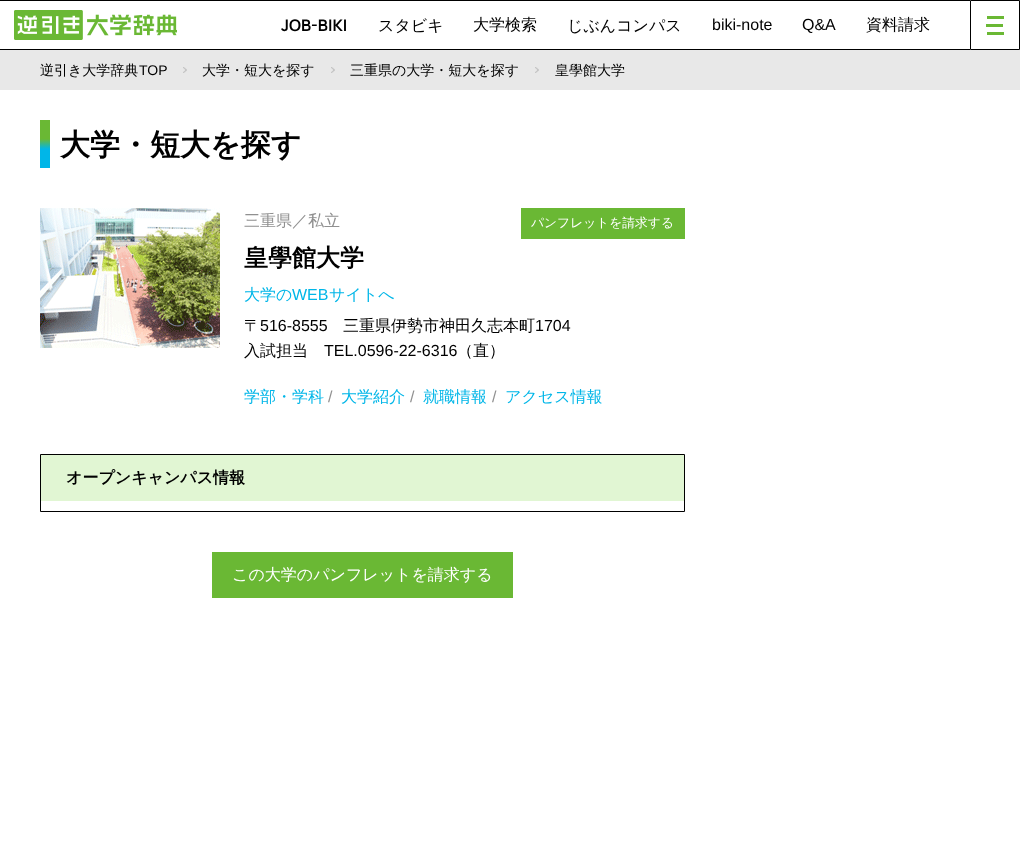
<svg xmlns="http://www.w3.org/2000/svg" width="1020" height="860">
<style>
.a{font:bold 16px Manrope;fill:#000}
.b{font:500 16px WenQuanYi Zen Hei;fill:#000}
.c{font:16px Liberation Sans;fill:#000}
.d{font:500 14px WenQuanYi Zen Hei;fill:#000}
.e{font:14px Liberation Sans;fill:#000}
.f{font:bold 30px WenQuanYi Zen Hei;fill:#000}
.g{font:500 16px WenQuanYi Zen Hei;fill:#909090}
.h{font:500 12.75px WenQuanYi Zen Hei;fill:#fff}
.i{font:bold 24px WenQuanYi Zen Hei;fill:#000}
.j{font:500 16px WenQuanYi Zen Hei;fill:#00b6e8}
.k{font:16px Liberation Sans;fill:#00b6e8}
.l{font:16px Liberation Sans;fill:#909090}
.m{font:bold 16px WenQuanYi Zen Hei;fill:#000}
.n{font:500 16px WenQuanYi Zen Hei;fill:#fff}
</style>
<rect width="100%" height="100%" fill="#fff"/>
<path fill="#000" d="M0 0h970v1H0z"/>
<path fill="#000" d="M0 49h970v1H0z"/>
<image href="1.png" x="14" y="10" width="163" height="30"/>
<path fill="none" stroke="#000" d="M970.5 0.5h49v49H970.5z"/>
<path fill="#6ab834" d="M986 24h17v3H986z"/>
<path fill="#6ab834" d="M987 16h17v3H987z"/>
<path fill="#6ab834" d="M987 32h17v3H987z"/>
<path fill="#e8e8e8" d="M0 50h1020v40H0z"/>
<image href="2.png" x="183" y="67" width="4" height="6"/>
<image href="2.png" x="331" y="67" width="4" height="6"/>
<image href="2.png" x="535" y="67" width="4" height="6"/>
<image href="3.png" x="40" y="120" width="10" height="48"/>
<image href="4.png" x="40" y="208" width="180" height="140"/>
<path fill="#6ab834" d="M521 208h164v31H521z"/>
<path fill="none" stroke="#000" d="M40.5 454.5h644v57H40.5z"/>
<path fill="#e1f6d3" d="M41 455h643v46H41z"/>
<path fill="#6ab834" d="M212 552h301v46H212z"/>
<text class="a" x="281" y="31">JOB-BIKI</text>
<text class="b" x="378" y="31">スタビキ</text>
<text class="b" x="473" y="30">大学検索</text>
<text class="b" x="567" y="31">じぶんコンパス</text>
<text class="c" x="712" y="30">biki-note</text>
<text class="c" x="802" y="30">Q&amp;A</text>
<text class="b" x="866" y="30">資料請求</text>
<text class="d" x="40" y="75">逆引き大学辞典</text>
<text class="e" x="139" y="75">TOP</text>
<text class="d" x="202" y="75">大学・短大を探す</text>
<text class="d" x="350" y="75">三重県の大学・短大を探す</text>
<text class="d" x="555" y="75">皇學館大学</text>
<text class="f" x="60" y="155">大学・短大を探す</text>
<text class="g" x="244" y="226">三重県／私立</text>
<text class="h" x="531" y="227">パンフレットを請求する</text>
<text class="i" x="244" y="266">皇學館大学</text>
<text class="j" x="244" y="300">大学の</text>
<text class="k" x="292" y="300">WEB</text>
<text class="j" x="329" y="300">サイトへ</text>
<text class="b" x="244" y="331">〒</text>
<text class="c" x="260" y="331">516-8555</text>
<text class="b" x="343" y="331">三重県伊勢市神田久志本町</text>
<text class="c" x="535" y="331">1704</text>
<text class="b" x="244" y="356">入試担当</text>
<text class="c" x="324" y="356">TEL.0596-22-6316</text>
<text class="b" x="457" y="356">（直）</text>
<text class="j" x="244" y="402">学部・学科</text>
<text class="l" x="328" y="402">/</text>
<text class="j" x="341" y="402">大学紹介</text>
<text class="l" x="410" y="402">/</text>
<text class="j" x="423" y="402">就職情報</text>
<text class="l" x="492" y="402">/</text>
<text class="j" x="505" y="402">アクセス情報</text>
<text class="m" x="66" y="483">オープンキャンパス情報</text>
<text class="n" x="232" y="580">この大学のパンフレットを請求する</text>
</svg>
